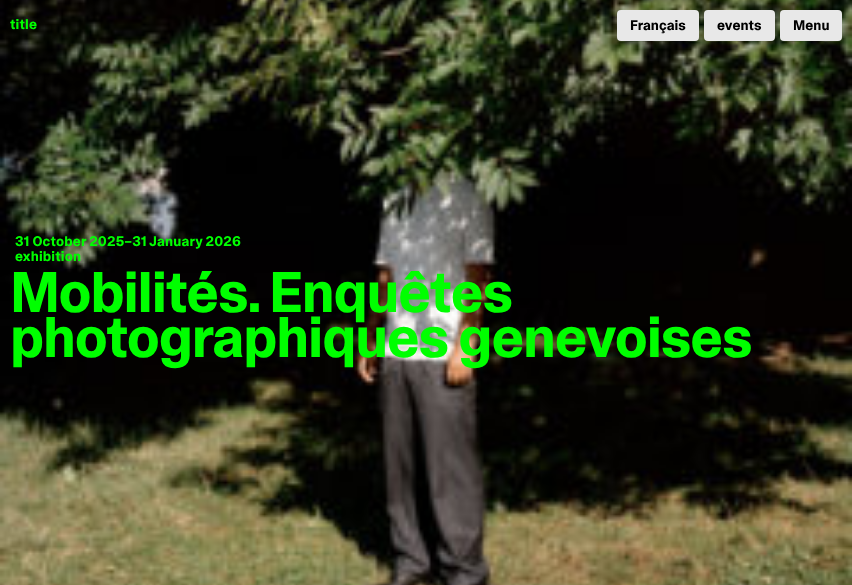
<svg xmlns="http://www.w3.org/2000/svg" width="852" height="585">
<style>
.a{font:bold 14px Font;letter-spacing:0.15px;fill:#0f0}
.b{font:bold 57.1px Font;letter-spacing:-1.15px;fill:#0f0}
.c{font:bold 14px Font;fill:#000}
</style>
<rect width="100%" height="100%" fill="#fff"/>
<image href="1.png" x="0" y="0" width="852" height="585"/>
<rect fill="#e8e8e8" x="617" y="10" width="82" height="31" rx="4"/>
<rect fill="#e8e8e8" x="704" y="10" width="71" height="31" rx="4"/>
<rect fill="#e8e8e8" x="780" y="10" width="62" height="31" rx="4"/>
<text class="a" x="10" y="29">title</text>
<text class="a" x="15" y="246">31 October 2025–31 January 2026</text>
<text class="a" x="15" y="261">exhibition</text>
<text class="b" x="10" y="312">Mobilités. Enquêtes</text>
<text class="b" x="10" y="357">photographiques genevoises</text>
<text class="c" x="630" y="30">Français</text>
<text class="c" x="717" y="30">events</text>
<text class="c" x="793" y="30">Menu</text>
</svg>
